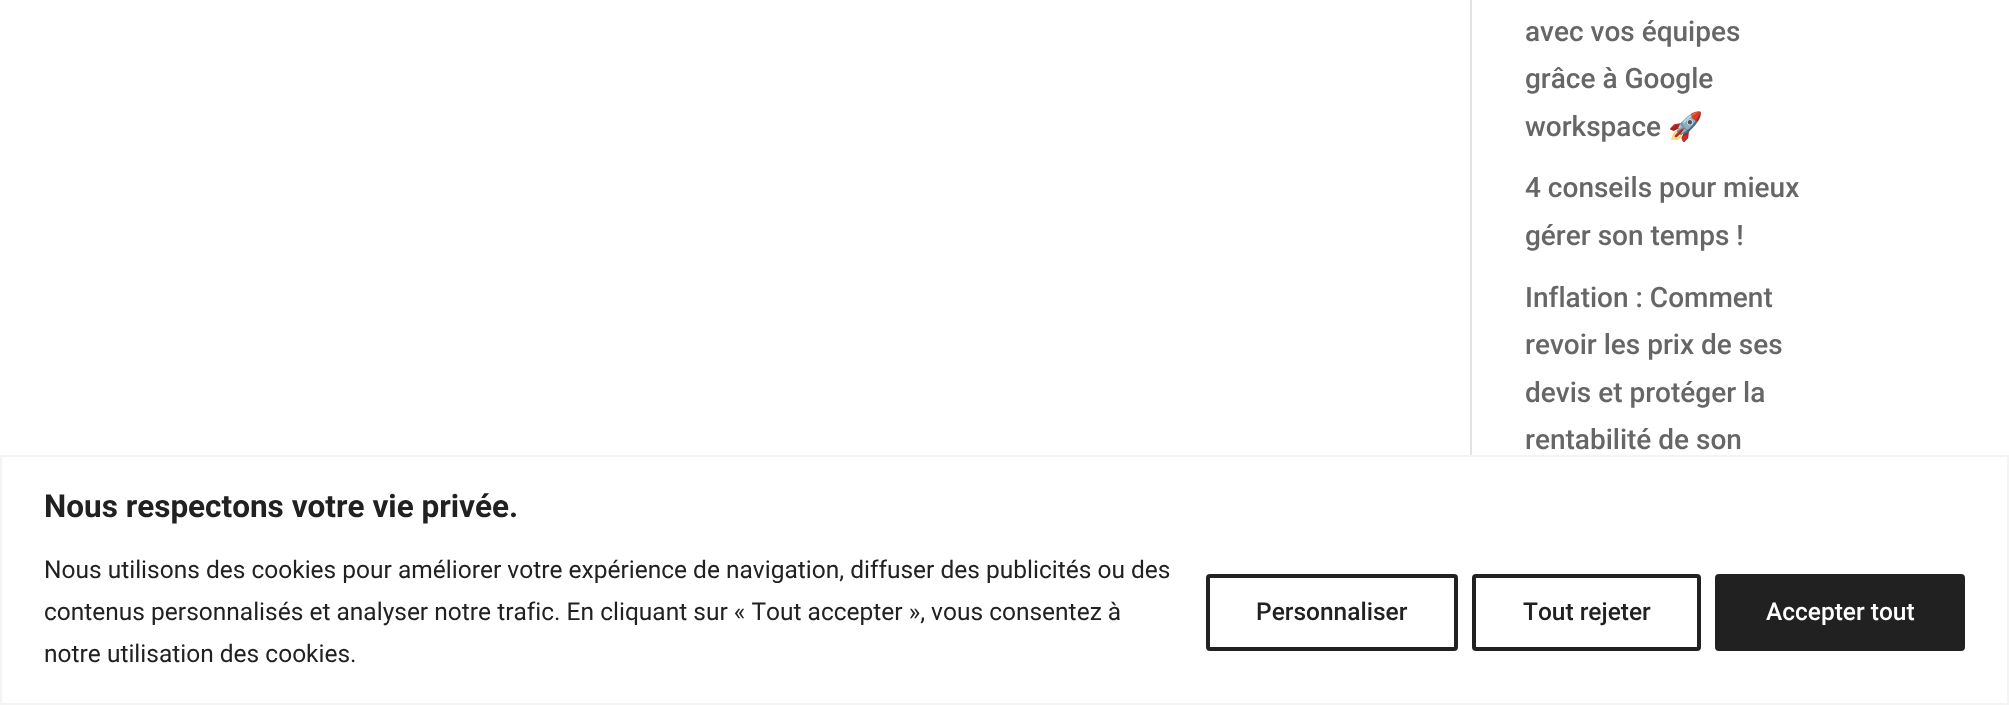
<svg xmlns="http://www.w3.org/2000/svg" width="2009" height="705">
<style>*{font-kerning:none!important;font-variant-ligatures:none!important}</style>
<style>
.a{font:500 28px Roboto;fill:#666}
.b{font:28px Noto Color Emoji;fill:#666}
.c{font:bold 31.5px Roboto;fill:#212121}
.d{font:24.5px Roboto;fill:#212121}
.e{font:500 24.5px Roboto;fill:#212121}
.f{font:500 24.5px Roboto;fill:#fff}
</style>
<rect width="100%" height="100%" fill="#fff"/>
<path fill="#e2e2e2" d="M1470 0h2v455H1470z"/>
<path fill="none" stroke="#f4f4f4" stroke-width="2" d="M1 456h2007v248H1z"/>
<rect fill="none" stroke="#212121" stroke-width="4" x="1208" y="576" width="248" height="73" rx="2"/>
<rect fill="none" stroke="#212121" stroke-width="4" x="1474" y="576" width="225" height="73" rx="2"/>
<rect fill="#212121" stroke="#212121" stroke-width="4" x="1717" y="576" width="246" height="73" rx="2"/>
<text class="a" x="1525" y="41">avec vos équipes</text>
<text class="a" x="1525" y="88">grâce à Google</text>
<text class="a" x="1525" y="136">workspace</text>
<text class="b" x="1668" y="136">🚀</text>
<text class="a" x="1525" y="197">4 conseils pour mieux</text>
<text class="a" x="1525" y="245">gérer son temps !</text>
<text class="a" x="1525" y="307">Inflation : Comment</text>
<text class="a" x="1525" y="354">revoir les prix de ses</text>
<text class="a" x="1525" y="402">devis et protéger la</text>
<text class="a" x="1525" y="449">rentabilité de son</text>
<text class="c" x="44" y="517">Nous respectons votre vie privée.</text>
<text class="d" x="44" y="578">Nous utilisons des cookies pour améliorer votre expérience de navigation, diffuser des publicités ou des</text>
<text class="d" x="44" y="620">contenus personnalisés et analyser notre trafic. En cliquant sur « Tout accepter », vous consentez à</text>
<text class="d" x="44" y="662">notre utilisation des cookies.</text>
<text class="e" x="1256" y="620">Personnaliser</text>
<text class="e" x="1523" y="620">Tout rejeter</text>
<text class="f" x="1766" y="620">Accepter tout</text>
</svg>
